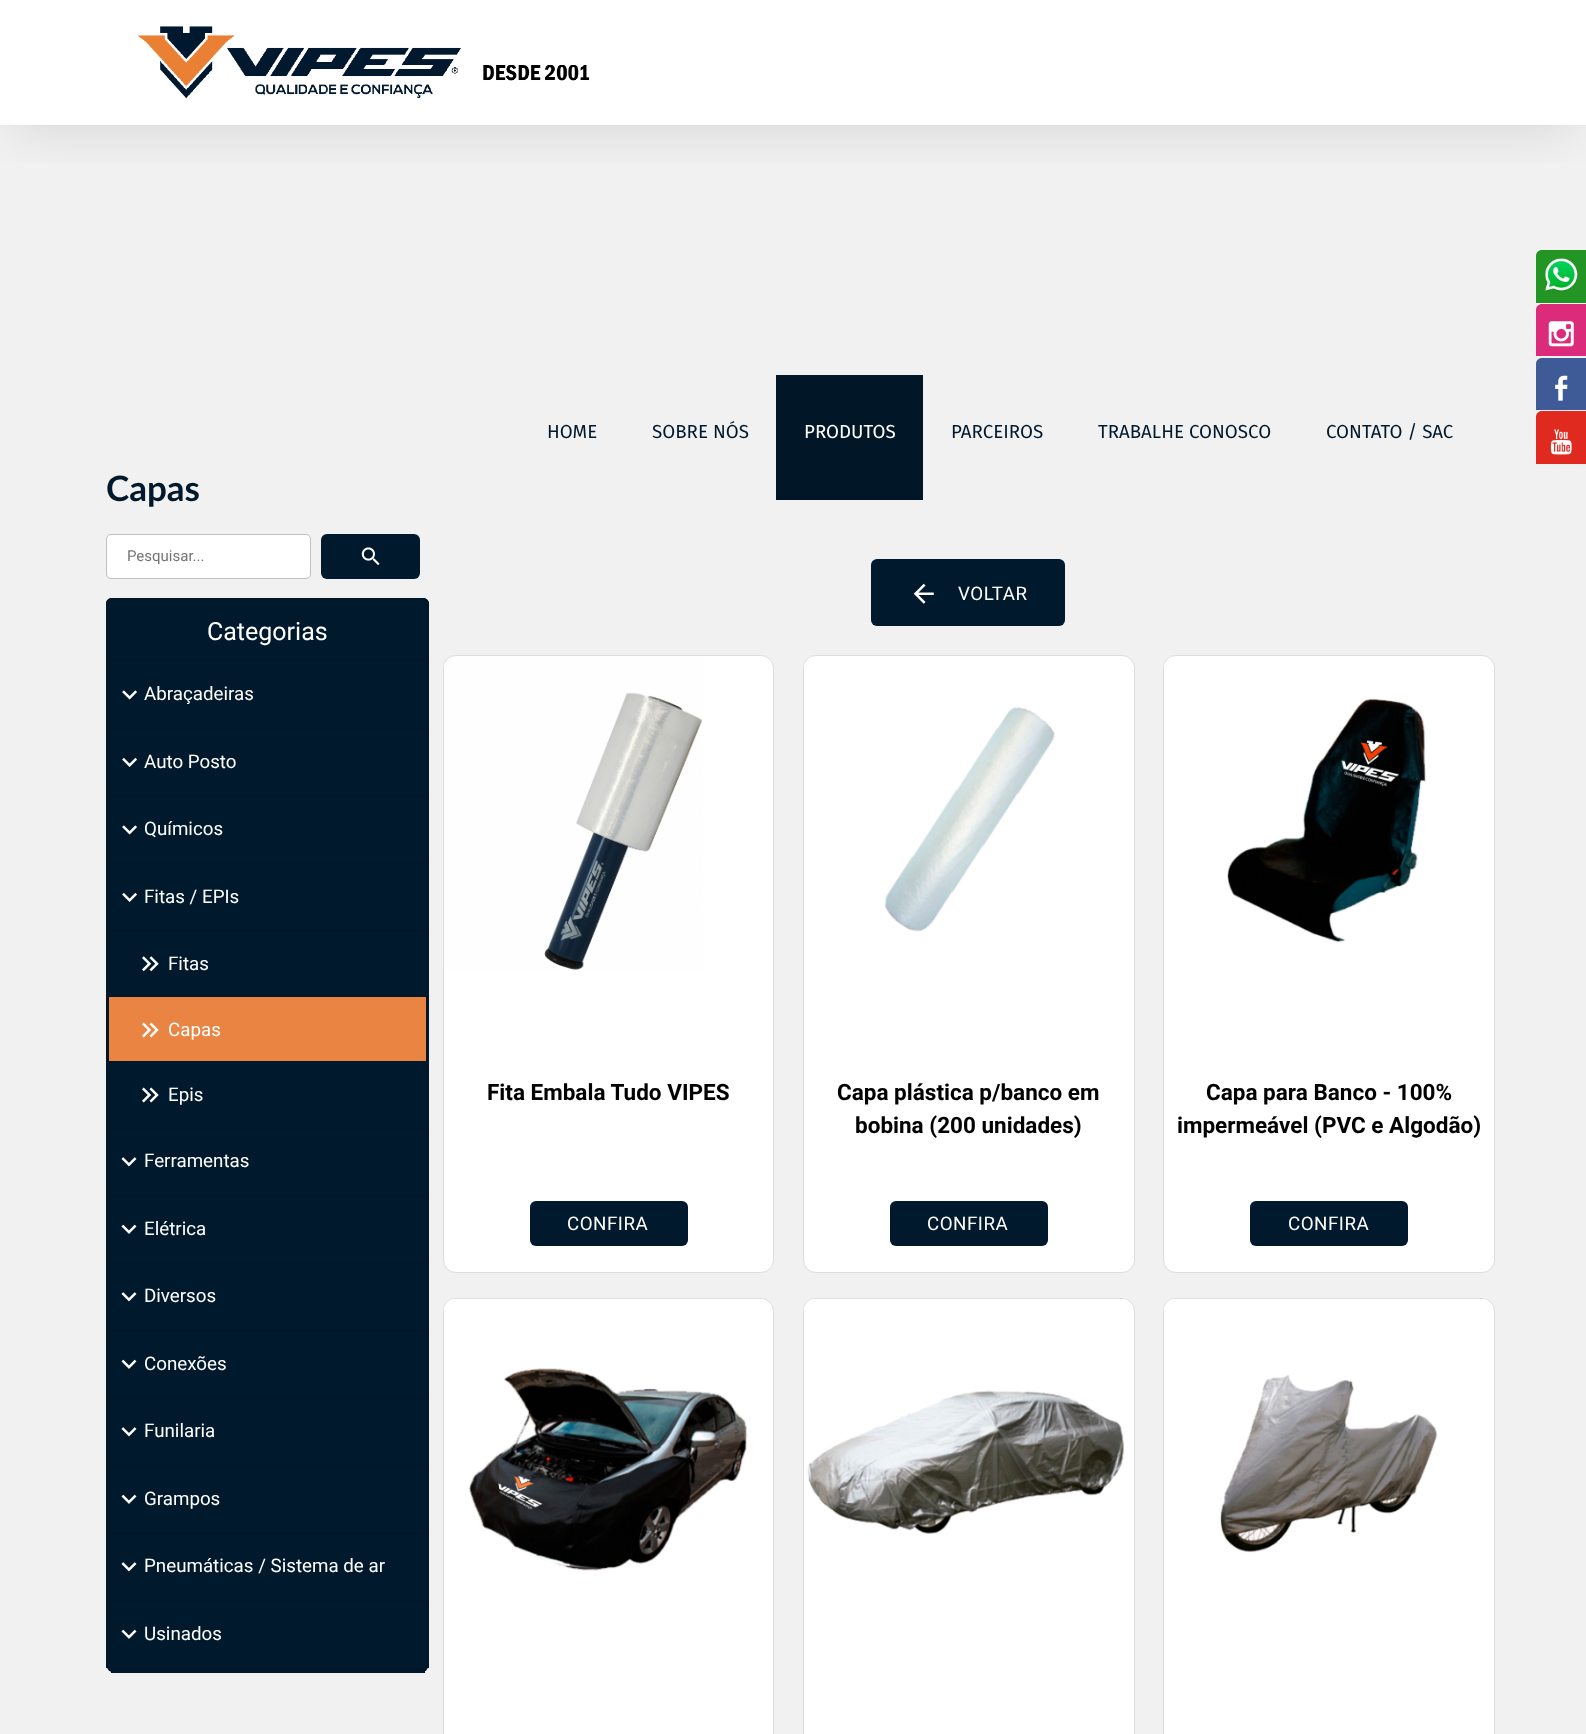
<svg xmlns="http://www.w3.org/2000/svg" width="1586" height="1734">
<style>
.a{font:18.75px Fira Sans;fill:#01192c}
.b{font:18.75px Fira Sans;fill:#fff}
.c{font:bold 35px Lato;fill:#01192c}
.d{font:15px Roboto;fill:#757575}
.e{font:25px Roboto;fill:#fff}
.f{font:18.75px Roboto;fill:#fff}
.g{font:18.75px Roboto;letter-spacing:0.5px;fill:#fff}
.h{font:bold 22.5px Roboto;fill:#000}
</style>
<defs>
<clipPath id="clip1"><path d="M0 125h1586v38H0z"/></clipPath>
</defs>
<rect width="100%" height="100%" fill="#f1f1f1"/>
<path fill="#fff" d="M0 0h1586v125H0z"/>
<g clip-path="url(#clip1)">
<rect fill="#0000001a" filter="blur(25px)" x="6" y="69" width="1574" height="62" rx="31"/>
</g>
<image href="1.png" x="138" y="26" width="452" height="73"/>
<path fill="#011627" d="M776 375h147v125H776z"/>
<path fill="#229525" d="M1542 250h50v53h-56v-47c0-3.5 2.5-6 6-6z"/>
<image href="2.png" x="1545" y="258" width="33" height="34"/>
<path fill="#dc2b7a" d="M1542 304h44c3.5 0 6 2.5 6 6v46h-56v-46c0-3.5 2.5-6 6-6z"/>
<image href="3.png" x="1548" y="321" width="26" height="26"/>
<path fill="#3e5b98" d="M1542 358h44c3.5 0 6 2.5 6 6v46h-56v-46c0-3.5 2.5-6 6-6z"/>
<image href="4.png" x="1555" y="375" width="13" height="26"/>
<path fill="#e02a20" d="M1542 411h44c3.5 0 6 2.5 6 6v47h-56v-47c0-3.5 2.5-6 6-6z"/>
<image href="5.png" x="1550" y="429" width="22" height="26"/>
<rect fill="#fff" stroke="#c1bfbf" x="106.5" y="534.5" width="204" height="44" rx="4.5"/>
<rect fill="#01192c" x="321" y="534" width="99" height="45" rx="6"/>
<image href="6.png" x="361" y="547" width="19" height="18"/>
<rect fill="#01192c" x="106" y="598" width="323" height="1075" rx="9"/>
<path fill="#011627" d="M111 1668h314v5H111z"/>
<path fill="#01192c" d="M112 598h311c3.5 0 6 2.5 6 6v56h-323v-56c0-3.5 2.5-6 6-6z"/>
<path fill="#011627" fill-rule="evenodd" d="M112 598h310c4 0 7 2 7 6v56h-323v-56c0-4 3-6 6-6zm0 2h310c3 0 4 2 4 4v56h-317v-56c0-2 1-4 3-4z"/>
<path fill="#011627" d="M106 660h323v1H106z"/>
<path fill="#011627" d="M426 660h3v68H426z"/>
<path fill="#011627" d="M106 660h3v68H106z"/>
<image href="7.png" x="122" y="690" width="15" height="10"/>
<path fill="#011627" d="M106 728h323v1H106z"/>
<path fill="#011627" d="M426 728h3v67H426z"/>
<path fill="#011627" d="M106 728h3v67H106z"/>
<image href="8.png" x="122" y="757" width="15" height="10"/>
<path fill="#011627" d="M106 795h323v1H106z"/>
<path fill="#011627" d="M426 795h3v68H426z"/>
<path fill="#011627" d="M106 795h3v68H106z"/>
<image href="7.png" x="122" y="825" width="15" height="10"/>
<path fill="#011627" d="M106 863h323v1H106z"/>
<path fill="#011627" d="M426 863h3v67H426z"/>
<path fill="#011627" d="M106 863h3v67H106z"/>
<image href="8.png" x="122" y="892" width="15" height="10"/>
<path fill="#011627" d="M106 930h323v1H106z"/>
<path fill="#011627" d="M426 930h3v66H426z"/>
<path fill="#011627" d="M106 930h3v66H106z"/>
<image href="9.png" x="142" y="956" width="10" height="16"/>
<image href="10.png" x="149" y="956" width="10" height="16"/>
<path fill="#e98442" d="M109 997h317v64H109z"/>
<path fill="#011627" d="M106 996h323v1H106z"/>
<path fill="#011627" d="M426 996h3v65H426z"/>
<path fill="#011627" d="M106 996h3v65H106z"/>
<image href="11.png" x="142" y="1022" width="10" height="16"/>
<image href="12.png" x="149" y="1022" width="10" height="16"/>
<path fill="#011627" d="M106 1061h323v1H106z"/>
<path fill="#011627" d="M426 1061h3v67H426z"/>
<path fill="#011627" d="M106 1061h3v67H106z"/>
<image href="13.png" x="142" y="1087" width="10" height="16"/>
<image href="14.png" x="149" y="1087" width="10" height="16"/>
<path fill="#011627" d="M106 1128h323v1H106z"/>
<path fill="#011627" d="M426 1128h3v67H426z"/>
<path fill="#011627" d="M106 1128h3v67H106z"/>
<image href="15.png" x="121" y="1157" width="16" height="10"/>
<path fill="#011627" d="M106 1195h323v1H106z"/>
<path fill="#011627" d="M426 1195h3v68H426z"/>
<path fill="#011627" d="M106 1195h3v68H106z"/>
<image href="16.png" x="121" y="1224" width="16" height="10"/>
<path fill="#011627" d="M106 1263h323v1H106z"/>
<path fill="#011627" d="M426 1263h3v67H426z"/>
<path fill="#011627" d="M106 1263h3v67H106z"/>
<image href="15.png" x="121" y="1292" width="16" height="10"/>
<path fill="#011627" d="M106 1330h323v1H106z"/>
<path fill="#011627" d="M426 1330h3v68H426z"/>
<path fill="#011627" d="M106 1330h3v68H106z"/>
<image href="16.png" x="121" y="1359" width="16" height="10"/>
<path fill="#011627" d="M106 1398h323v1H106z"/>
<path fill="#011627" d="M426 1398h3v67H426z"/>
<path fill="#011627" d="M106 1398h3v67H106z"/>
<image href="15.png" x="121" y="1427" width="16" height="10"/>
<path fill="#011627" d="M106 1465h323v1H106z"/>
<path fill="#011627" d="M426 1465h3v68H426z"/>
<path fill="#011627" d="M106 1465h3v68H106z"/>
<image href="16.png" x="121" y="1494" width="16" height="10"/>
<path fill="#011627" d="M106 1533h323v1H106z"/>
<path fill="#011627" d="M426 1533h3v67H426z"/>
<path fill="#011627" d="M106 1533h3v67H106z"/>
<image href="15.png" x="121" y="1562" width="16" height="10"/>
<path fill="#011627" d="M106 1600h323v1H106z"/>
<path fill="#011627" d="M426 1600h3v68H426z"/>
<path fill="#011627" d="M106 1600h3v68H106z"/>
<image href="16.png" x="121" y="1629" width="16" height="10"/>
<rect fill="#01192c" x="871" y="559" width="194" height="67" rx="6"/>
<image href="17.png" x="913" y="583" width="21" height="21"/>
<rect fill="#fff" stroke="#ddd" x="443.5" y="655.5" width="330" height="617" rx="12.5"/>
<image href="18.png" x="444" y="657" width="259" height="313"/>
<rect fill="#01192c" x="530" y="1201" width="158" height="45" rx="6"/>
<rect fill="#fff" stroke="#ddd" x="803.5" y="655.5" width="331" height="617" rx="12.5"/>
<image href="19.png" x="804" y="657" width="251" height="275"/>
<rect fill="#01192c" x="890" y="1201" width="158" height="45" rx="6"/>
<rect fill="#fff" stroke="#ddd" x="1163.5" y="655.5" width="331" height="617" rx="12.5"/>
<image href="20.png" x="1164" y="657" width="262" height="285"/>
<rect fill="#01192c" x="1250" y="1201" width="158" height="45" rx="6"/>
<rect fill="#fff" stroke="#ddd" x="443.5" y="1298.5" width="330" height="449" rx="12.5"/>
<image href="21.png" x="444" y="1299" width="320" height="272"/>
<rect fill="#fff" stroke="#ddd" x="803.5" y="1298.5" width="331" height="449" rx="12.5"/>
<image href="22.png" x="804" y="1299" width="324" height="235"/>
<rect fill="#fff" stroke="#ddd" x="1163.5" y="1298.5" width="331" height="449" rx="12.5"/>
<image href="23.png" x="1164" y="1299" width="324" height="254"/>
<text class="a" x="547" y="438">HOME</text>
<text class="a" x="652" y="438">SOBRE NÓS</text>
<text class="b" x="804" y="438">PRODUTOS</text>
<text class="a" x="951" y="438">PARCEIROS</text>
<text class="a" x="1098" y="438">TRABALHE CONOSCO</text>
<text class="a" x="1326" y="438">CONTATO / SAC</text>
<text class="c" x="106" y="501">Capas</text>
<text class="d" x="127" y="561">Pesquisar...</text>
<text class="e" x="207" y="640">Categorias</text>
<text class="f" x="144" y="700">Abraçadeiras</text>
<text class="f" x="144" y="768">Auto Posto</text>
<text class="f" x="144" y="835">Químicos</text>
<text class="f" x="144" y="903">Fitas / EPIs</text>
<text class="f" x="168" y="970">Fitas</text>
<text class="f" x="168" y="1036">Capas</text>
<text class="f" x="168" y="1101">Epis</text>
<text class="f" x="144" y="1167">Ferramentas</text>
<text class="f" x="144" y="1235">Elétrica</text>
<text class="f" x="144" y="1302">Diversos</text>
<text class="f" x="144" y="1370">Conexões</text>
<text class="f" x="144" y="1437">Funilaria</text>
<text class="f" x="144" y="1505">Grampos</text>
<text class="f" x="144" y="1572">Pneumáticas / Sistema de ar</text>
<text class="f" x="144" y="1640">Usinados</text>
<text class="g" x="958" y="600">VOLTAR</text>
<text class="h" x="487" y="1100">Fita Embala Tudo VIPES</text>
<text class="g" x="567" y="1230">CONFIRA</text>
<text class="h" x="837" y="1100">Capa plástica p/banco em</text>
<text class="h" x="855" y="1133">bobina (200 unidades)</text>
<text class="g" x="927" y="1230">CONFIRA</text>
<text class="h" x="1206" y="1100">Capa para Banco - 100%</text>
<text class="h" x="1177" y="1133">impermeável (PVC e Algodão)</text>
<text class="g" x="1288" y="1230">CONFIRA</text>
</svg>
